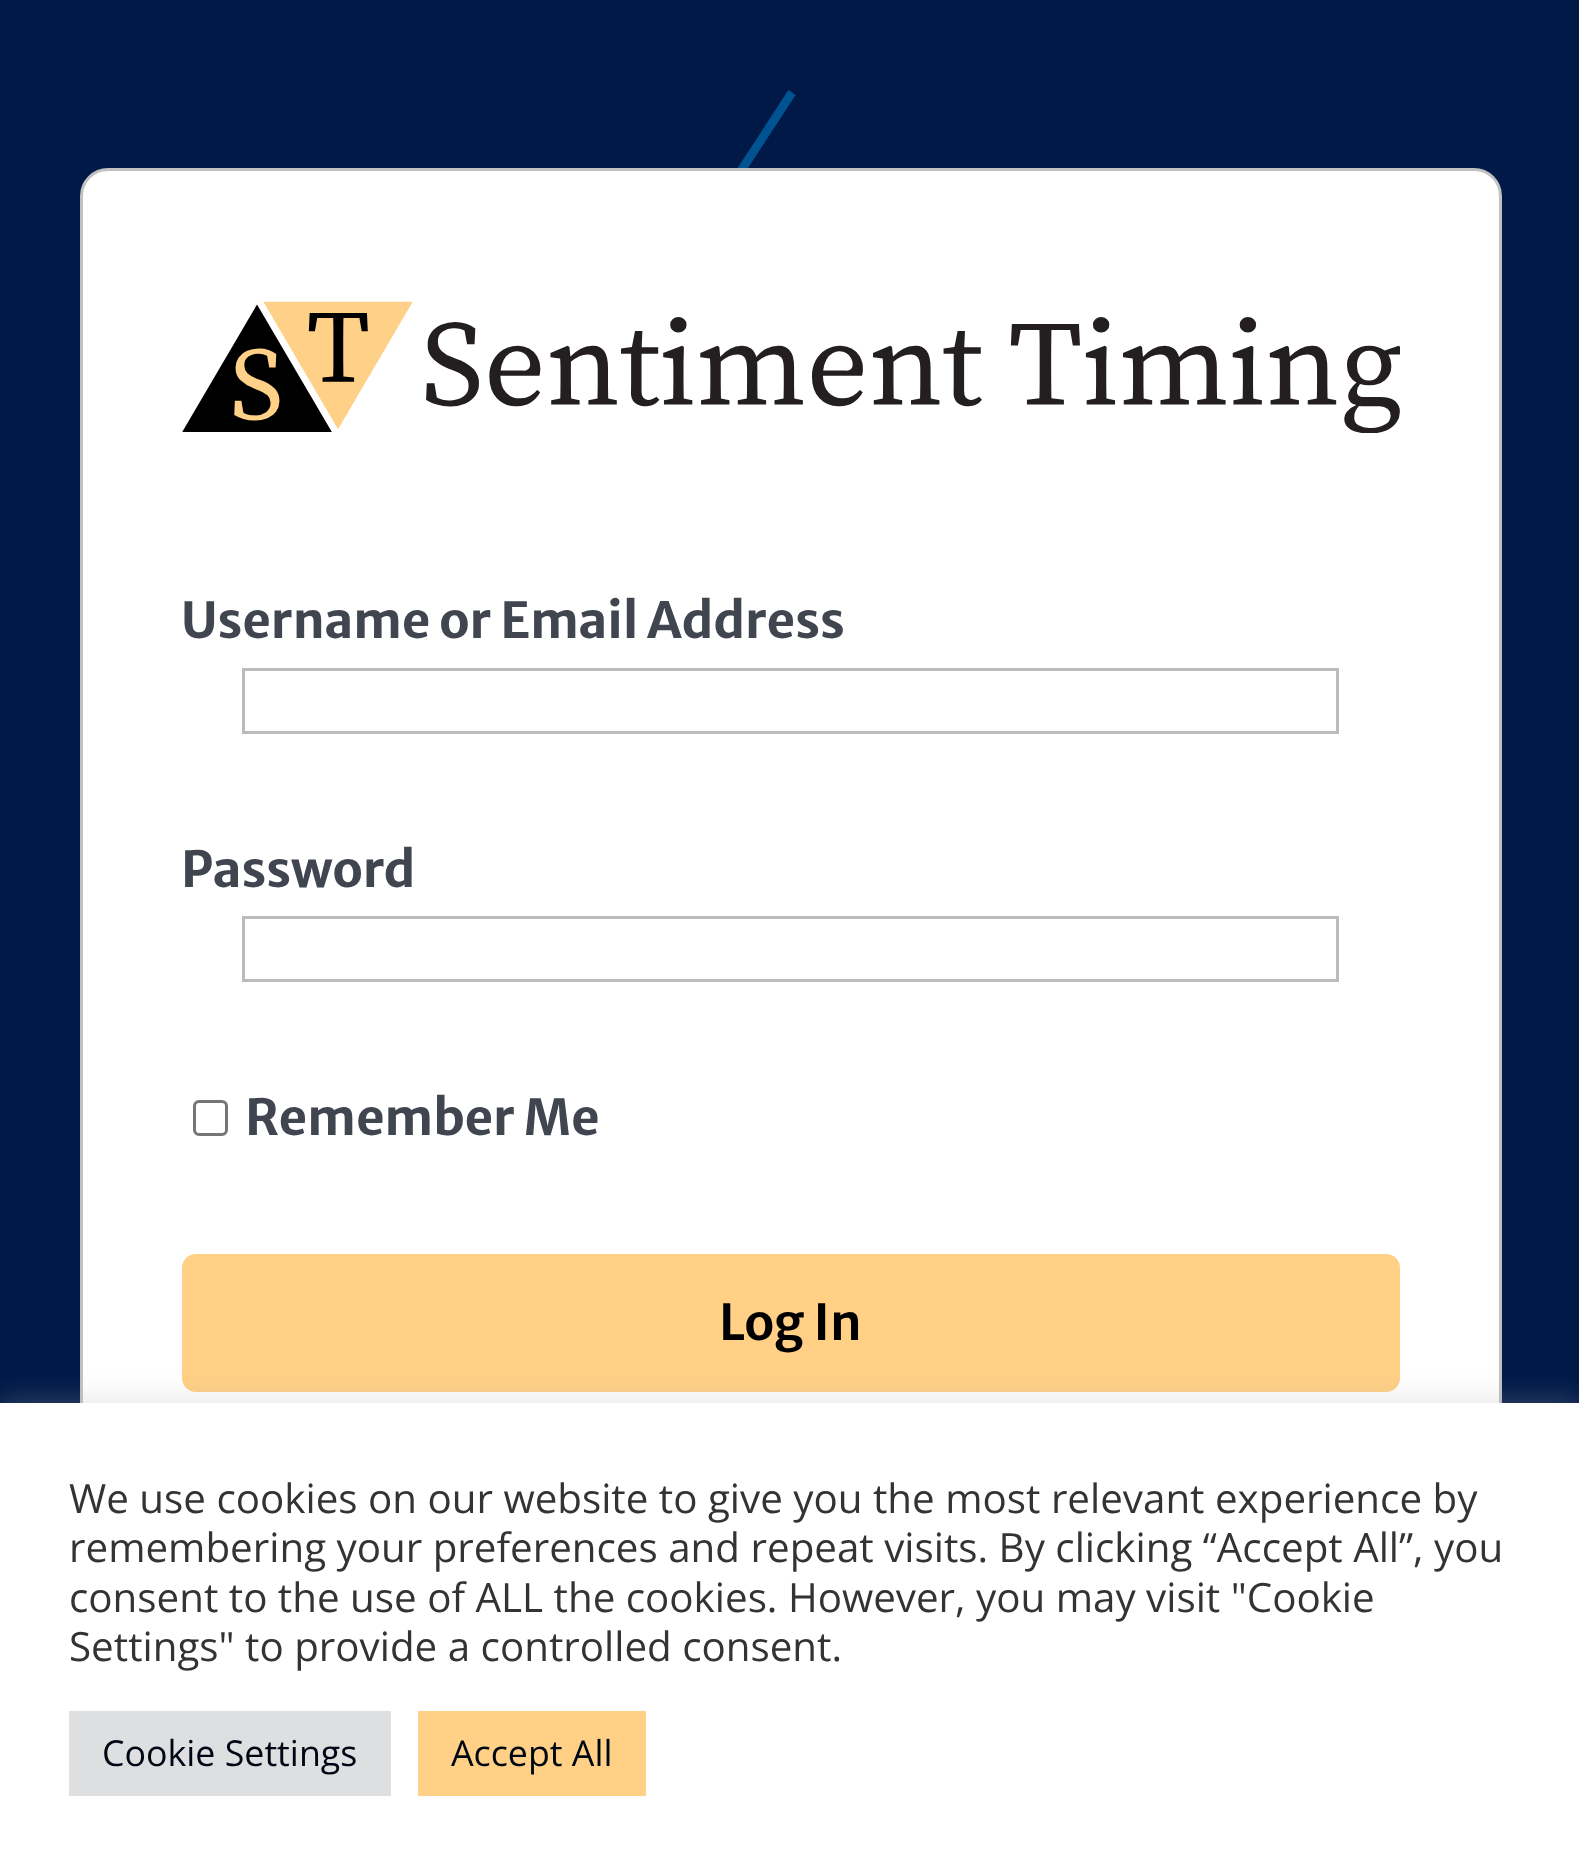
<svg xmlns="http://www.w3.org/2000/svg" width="1579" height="1876">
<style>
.a{font:bold 49.5px Merriweather Sans;fill:#40454f}
.b{font:600 49.5px Merriweather Sans;fill:#000}
.c{font:40.35px Open Sans;fill:#333}
.d{font:35.75px Open Sans;fill:#000714}
</style>
<rect width="100%" height="100%" fill="#001947"/>
<path fill="none" stroke="#005291" stroke-width="8.8" d="M235 946.5l557-854"/>
<rect fill="#fff" stroke="#c1c1c1" stroke-width="3" x="81.5" y="169.5" width="1419" height="1542" rx="26.5"/>
<image href="1.png" x="182" y="301" width="1218" height="132"/>
<path fill="none" stroke="#bbb" stroke-width="3" d="M243.5 669.5h1094v63H243.5z"/>
<path fill="none" stroke="#bbb" stroke-width="3" d="M243.5 917.5h1094v63H243.5z"/>
<rect fill="none" stroke="#767676" stroke-width="3" x="194.5" y="1101.5" width="32" height="33" rx="4.5"/>
<rect fill="#ffd085" x="182" y="1254" width="1218" height="138" rx="14"/>
<path fill="#acabab4d" filter="blur(14px)" d="M0 1400h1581v476H0z"/>
<path fill="#fff" d="M0 1403h1579v473H0z"/>
<path fill="#dedfe0" d="M69 1711h322v85H69z"/>
<path fill="#ffd085" d="M418 1711h228v85H418z"/>
<text class="a" x="181" y="638">Username or Email Address</text>
<text class="a" x="181" y="887">Password</text>
<text class="a" x="245" y="1135">Remember Me</text>
<text class="b" x="719" y="1340">Log In</text>
<text class="c" x="69" y="1513">We use cookies on our website to give you the most relevant experience by</text>
<text class="c" x="69" y="1562">remembering your preferences and repeat visits. By clicking “Accept All”, you</text>
<text class="c" x="69" y="1612">consent to the use of ALL the cookies. However, you may visit "Cookie</text>
<text class="c" x="69" y="1661">Settings" to provide a controlled consent.</text>
<text class="d" x="102" y="1766">Cookie Settings</text>
<text class="d" x="451" y="1766">Accept All</text>
</svg>
